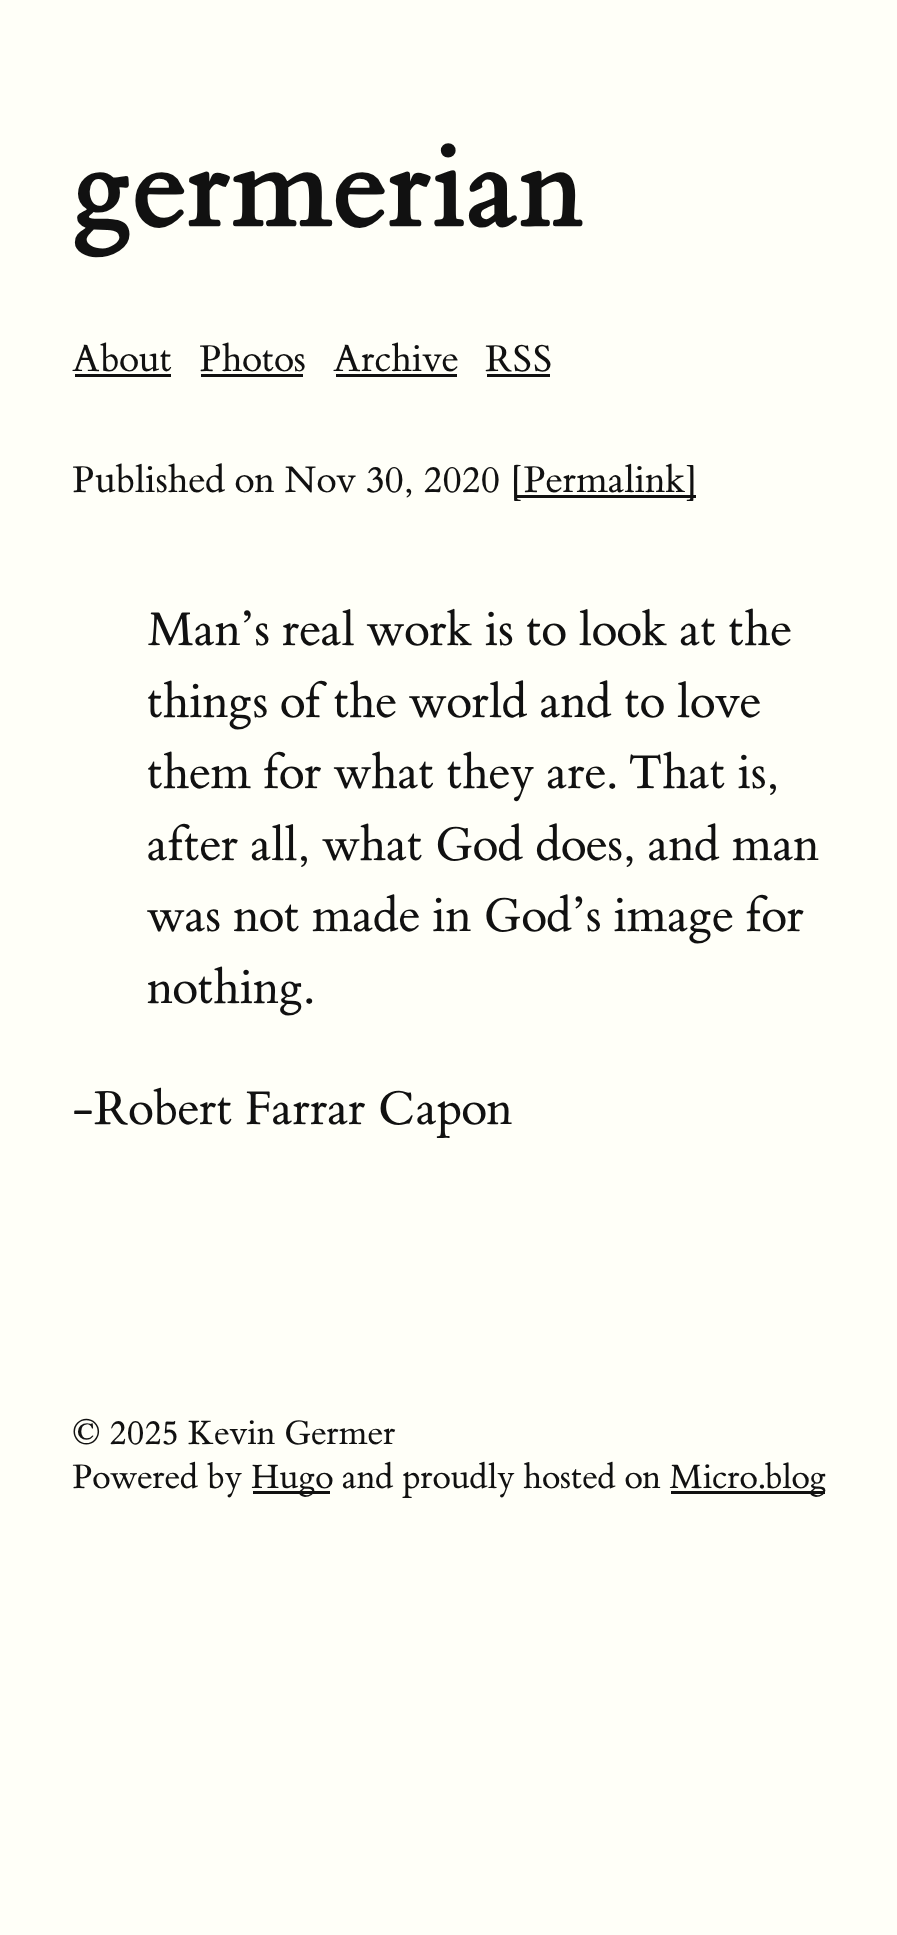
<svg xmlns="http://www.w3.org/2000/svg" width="897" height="1935">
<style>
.a{font:bold 125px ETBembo;fill:#111}
.b{font:39.25px ETBembo;fill:#111}
.c{font:50px ETBembo;fill:#111}
.d{font:35.75px ETBembo;fill:#111}
</style>
<rect width="100%" height="100%" fill="#fffff8"/>
<path fill="#111" d="M72 374h101v3H72z"/>
<path fill="#fffff8" d="M171 374h2v3H171z"/>
<path fill="#fffff8" d="M72 374h3v3H72z"/>
<path fill="#111" d="M198 374h107v3H198z"/>
<path fill="#fffff8" d="M303 374h2v3H303z"/>
<path fill="#fffff8" d="M198 374h3v3H198z"/>
<path fill="#111" d="M333 374h126v3H333z"/>
<path fill="#fffff8" d="M457 374h2v3H457z"/>
<path fill="#fffff8" d="M333 374h3v3H333z"/>
<path fill="#111" d="M484 374h69v3H484z"/>
<path fill="#fffff8" d="M550 374h3v3H550z"/>
<path fill="#fffff8" d="M484 374h3v3H484z"/>
<path fill="#111" d="M512 495h187v3H512z"/>
<path fill="#fffff8" d="M696 495h3v3H696z"/>
<path fill="#fffff8" d="M512 495h3v3H512z"/>
<path fill="#111" d="M250 1491h83v3H250z"/>
<path fill="#fffff8" d="M330 1491h3v3H330z"/>
<path fill="#fffff8" d="M250 1491h3v3H250z"/>
<path fill="#111" d="M668 1491h160v3H668z"/>
<path fill="#fffff8" d="M825 1491h3v3H825z"/>
<path fill="#fffff8" d="M668 1491h3v3H668z"/>
<text class="a" x="72" y="226">germerian</text>
<text class="b" x="72" y="371">About</text>
<text class="b" x="199" y="371">Photos</text>
<text class="b" x="333" y="371">Archive</text>
<text class="b" x="485" y="371">RSS</text>
<text class="b" x="72" y="492">Published on Nov 30, 2020</text>
<text class="b" x="510" y="492">[Permalink]</text>
<text class="c" x="147" y="645">Man’s real work is to look at the</text>
<text class="c" x="147" y="717">things of the world and to love</text>
<text class="c" x="147" y="788">them for what they are. That is,</text>
<text class="c" x="147" y="860">after all, what God does, and man</text>
<text class="c" x="147" y="931">was not made in God’s image for</text>
<text class="c" x="147" y="1003">nothing.</text>
<text class="c" x="72" y="1124">-Robert Farrar Capon</text>
<text class="d" x="72" y="1444">© 2025 Kevin Germer</text>
<text class="d" x="72" y="1488">Powered by</text>
<text class="d" x="251" y="1488">Hugo and proudly hosted on</text>
<text class="d" x="669" y="1488">Micro.blog</text>
</svg>
